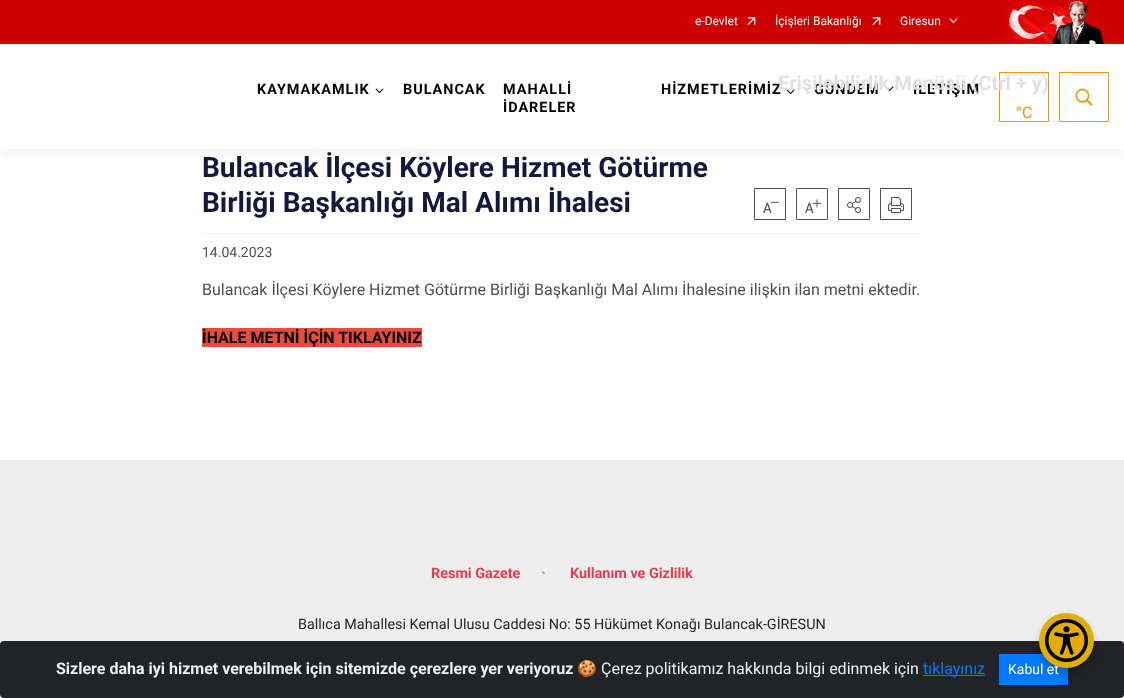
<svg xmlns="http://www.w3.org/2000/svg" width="1124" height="698">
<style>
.a{font:12px Roboto;fill:#fff}
.b{font:bold 14.4px Roboto;letter-spacing:1px;fill:#000}
.c{font:16px Roboto;fill:#f59300}
.d{font:bold 28px Roboto;fill:#13183e}
.e{font:14px Roboto;fill:#4f4f4f}
.f{font:16px Roboto;fill:#4f4f4f}
.g{font:bold 16px Roboto;fill:#000}
.h{font:bold 14.4px Roboto;fill:#e63b4f}
.i{font:14.4px Roboto;fill:#aaa}
.j{font:14.4px Roboto;fill:#252525}
.k{font:bold 20px Roboto;fill:#e1e1e0}
.l{font:bold 16px Roboto;fill:#ecf0f1}
.m{font:16px Noto Color Emoji;fill:#ecf0f1}
.n{font:16px Roboto;fill:#ecf0f1}
.o{font:16px Roboto;fill:#007bff}
.p{font:14px Roboto;fill:#fff}
</style>
<defs>
<clipPath id="clip1"><path d="M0 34h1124v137h-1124zm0 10h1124v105h-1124z" clip-rule="evenodd"/></clipPath>
</defs>
<rect width="100%" height="100%" fill="#fff"/>
<path fill="#ce0000" d="M0 0h1124v44H0z"/>
<image href="1.png" x="747" y="17" width="9" height="8"/>
<image href="1.png" x="872" y="17" width="9" height="8"/>
<image href="2.png" x="949" y="18" width="9" height="6"/>
<image href="3.png" x="1003" y="0" width="101" height="44"/>
<g clip-path="url(#clip1)">
<path fill="#eeeeee9e" filter="blur(5px)" d="M0 50h1124v105H0z"/>
</g>
<image href="4.png" x="375" y="88" width="9" height="6"/>
<image href="4.png" x="786" y="89" width="9" height="6"/>
<image href="4.png" x="885" y="86" width="9" height="6"/>
<path fill="none" stroke="#f59300" d="M999.5 72.5h49v49H999.5z"/>
<path fill="none" stroke="#f59300" d="M1059.5 72.5h49v49H1059.5z"/>
<image href="5.png" x="1075" y="88" width="18" height="18"/>
<path fill="#eee" d="M202 233h720v1H202z"/>
<path fill="none" stroke="#4f4f4f" d="M754.5 188.5h31v31H754.5z"/>
<image href="6.png" x="763" y="201" width="16" height="12"/>
<path fill="none" stroke="#4f4f4f" d="M796.5 188.5h31v31H796.5z"/>
<image href="7.png" x="805" y="199" width="16" height="14"/>
<path fill="none" stroke="#4f4f4f" d="M838.5 188.5h31v31H838.5z"/>
<image href="8.png" x="847" y="197" width="14" height="16"/>
<path fill="none" stroke="#4f4f4f" d="M880.5 188.5h31v31H880.5z"/>
<image href="9.png" x="888" y="197" width="16" height="16"/>
<path fill="#e74c3c" d="M202 328h220v19H202z"/>
<path fill="#eee" d="M0 460h1124v185H0z"/>
<rect fill="#212327" y="641" width="1124" height="57" rx="4"/>
<path fill="#007bff" d="M999 654h69v31H999z"/>
<rect fill="#00000033" filter="blur(4px)" x="1039" y="619" width="55" height="55" rx="27.5"/>
<path fill="#007bff" d="M923 675h62v1H923z"/>
<text class="a" x="695" y="25">e-Devlet</text>
<text class="a" x="775" y="25">İçişleri Bakanlığı</text>
<text class="a" x="900" y="25">Giresun</text>
<text class="b" x="257" y="94">KAYMAKAMLIK</text>
<text class="b" x="403" y="94">BULANCAK</text>
<text class="b" x="503" y="94">MAHALLİ</text>
<text class="b" x="503" y="112">İDARELER</text>
<text class="b" x="661" y="94">HİZMETLERİMİZ</text>
<text class="b" x="814" y="94">GÜNDEM</text>
<text class="b" x="913" y="94">İLETİŞİM</text>
<text class="c" x="1016" y="118">°C</text>
<text class="d" x="202" y="177">Bulancak İlçesi Köylere Hizmet Götürme</text>
<text class="d" x="202" y="212">Birliği Başkanlığı Mal Alımı İhalesi</text>
<text class="e" x="202" y="257">14.04.2023</text>
<text class="f" x="202" y="295">Bulancak İlçesi Köylere Hizmet Götürme Birliği Başkanlığı Mal Alımı İhalesine ilişkin ilan metni ektedir.</text>
<text class="g" x="202" y="343">İHALE METNİ İÇİN TIKLAYINIZ</text>
<text class="h" x="431" y="578">Resmi Gazete</text>
<text class="i" x="541" y="578">•</text>
<text class="h" x="570" y="578">Kullanım ve Gizlilik</text>
<text class="j" x="298" y="629">Ballıca Mahallesi Kemal Ulusu Caddesi No: 55 Hükümet Konağı Bulancak-GİRESUN</text>
<text class="k" x="778" y="90">Erişilebilirlik Menüsü (Ctrl + y)</text>
<text class="l" x="56" y="674">Sizlere daha iyi hizmet verebilmek için sitemizde çerezlere yer veriyoruz</text>
<text class="m" x="577" y="674">🍪</text>
<text class="n" x="601" y="674">Çerez politikamız hakkında bilgi edinmek için</text>
<text class="o" x="923" y="674">tıklayınız</text>
<text class="p" x="1008" y="674">Kabul et</text>
<circle fill="#e1ad01" cx="1066.5" cy="640.5" r="27.5"/>
<image href="10.png" x="1045" y="619" width="43" height="43"/>
</svg>
